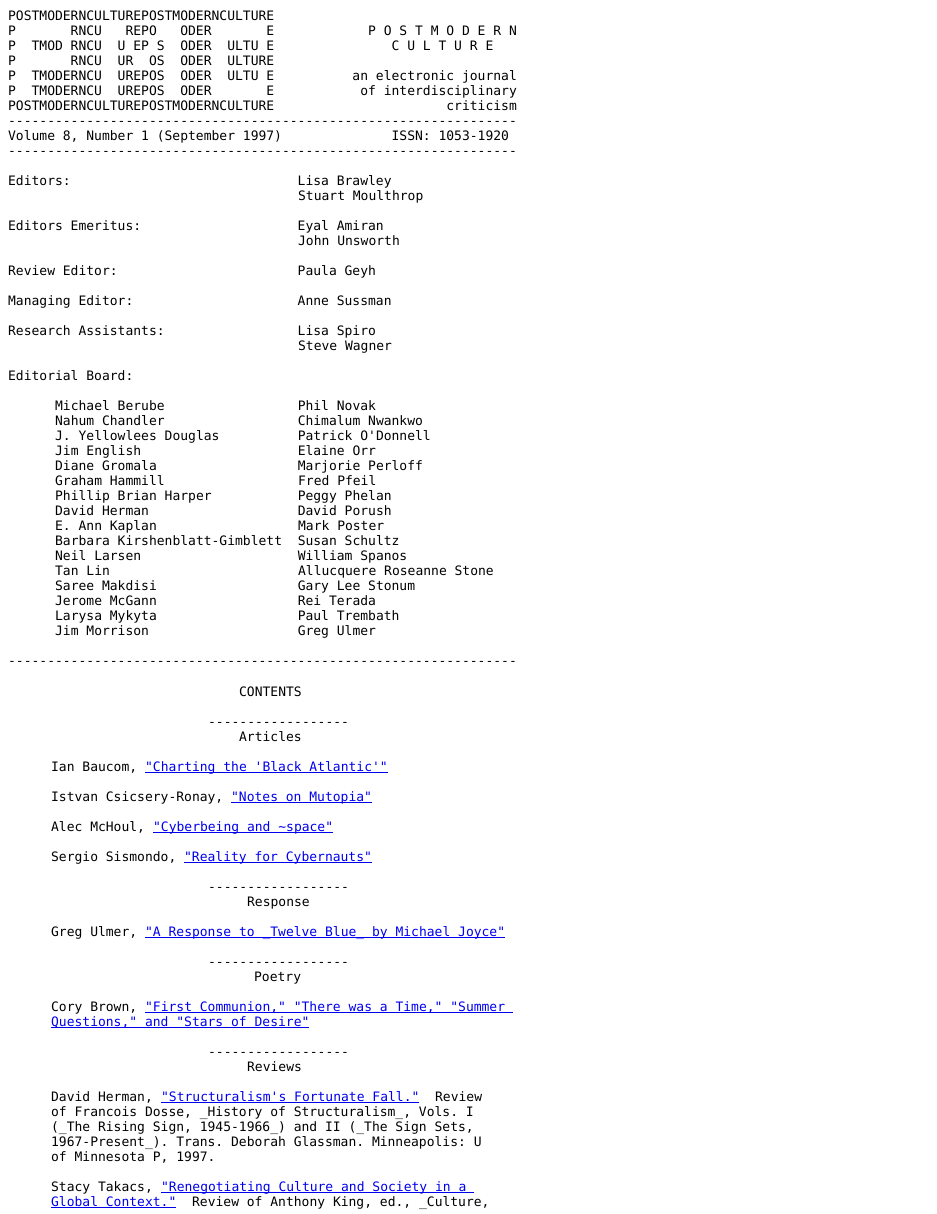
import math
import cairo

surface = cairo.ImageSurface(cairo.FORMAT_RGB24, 937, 1214)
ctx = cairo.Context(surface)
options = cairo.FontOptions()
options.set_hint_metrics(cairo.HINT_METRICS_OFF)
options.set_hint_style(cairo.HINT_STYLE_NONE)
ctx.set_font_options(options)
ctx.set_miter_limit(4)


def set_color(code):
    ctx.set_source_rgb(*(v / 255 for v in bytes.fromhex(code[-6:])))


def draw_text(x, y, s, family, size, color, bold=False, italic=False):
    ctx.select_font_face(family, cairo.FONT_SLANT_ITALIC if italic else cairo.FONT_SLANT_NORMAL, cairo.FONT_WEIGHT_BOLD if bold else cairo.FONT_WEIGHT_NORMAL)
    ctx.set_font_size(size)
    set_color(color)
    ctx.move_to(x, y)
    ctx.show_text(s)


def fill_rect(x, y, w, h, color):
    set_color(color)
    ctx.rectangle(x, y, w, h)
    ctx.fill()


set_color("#ffffff")
ctx.paint()
draw_text(8, 20, "POSTMODERNCULTUREPOSTMODERNCULTURE", "DejaVu Sans Mono", 13, "#000000")
draw_text(8, 35, "P       RNCU   REPO   ODER       E            P O S T M O D E R N", "DejaVu Sans Mono", 13, "#000000")
draw_text(8, 50, "P  TMOD RNCU  U EP S  ODER  ULTU E               C U L T U R E", "DejaVu Sans Mono", 13, "#000000")
draw_text(8, 65, "P       RNCU  UR  OS  ODER  ULTURE", "DejaVu Sans Mono", 13, "#000000")
draw_text(8, 80, "P  TMODERNCU  UREPOS  ODER  ULTU E          an electronic journal", "DejaVu Sans Mono", 13, "#000000")
draw_text(8, 95, "P  TMODERNCU  UREPOS  ODER       E           of interdisciplinary", "DejaVu Sans Mono", 13, "#000000")
draw_text(8, 110, "POSTMODERNCULTUREPOSTMODERNCULTURE                      criticism", "DejaVu Sans Mono", 13, "#000000")
draw_text(8, 125, "-----------------------------------------------------------------", "DejaVu Sans Mono", 13, "#000000")
draw_text(8, 140, "Volume 8, Number 1 (September 1997)              ISSN: 1053-1920", "DejaVu Sans Mono", 13, "#000000")
draw_text(8, 155, "-----------------------------------------------------------------", "DejaVu Sans Mono", 13, "#000000")
draw_text(8, 185, "Editors:                             Lisa Brawley", "DejaVu Sans Mono", 13, "#000000")
draw_text(298, 200, "Stuart Moulthrop", "DejaVu Sans Mono", 13, "#000000")
draw_text(8, 230, "Editors Emeritus:                    Eyal Amiran", "DejaVu Sans Mono", 13, "#000000")
draw_text(298, 245, "John Unsworth", "DejaVu Sans Mono", 13, "#000000")
draw_text(8, 275, "Review Editor:                       Paula Geyh", "DejaVu Sans Mono", 13, "#000000")
draw_text(8, 305, "Managing Editor:                     Anne Sussman", "DejaVu Sans Mono", 13, "#000000")
draw_text(8, 335, "Research Assistants:                 Lisa Spiro", "DejaVu Sans Mono", 13, "#000000")
draw_text(298, 350, "Steve Wagner", "DejaVu Sans Mono", 13, "#000000")
draw_text(8, 380, "Editorial Board:", "DejaVu Sans Mono", 13, "#000000")
draw_text(55, 410, "Michael Berube                 Phil Novak", "DejaVu Sans Mono", 13, "#000000")
draw_text(55, 425, "Nahum Chandler                 Chimalum Nwankwo", "DejaVu Sans Mono", 13, "#000000")
draw_text(55, 440, "J. Yellowlees Douglas          Patrick O'Donnell", "DejaVu Sans Mono", 13, "#000000")
draw_text(55, 455, "Jim English                    Elaine Orr", "DejaVu Sans Mono", 13, "#000000")
draw_text(55, 470, "Diane Gromala                  Marjorie Perloff", "DejaVu Sans Mono", 13, "#000000")
draw_text(55, 485, "Graham Hammill", "DejaVu Sans Mono", 13, "#000000")
draw_text(298, 485, "Fred Pfeil", "DejaVu Sans Mono", 13, "#000000")
draw_text(55, 500, "Phillip Brian Harper           Peggy Phelan", "DejaVu Sans Mono", 13, "#000000")
draw_text(55, 515, "David Herman                   David Porush", "DejaVu Sans Mono", 13, "#000000")
draw_text(55, 530, "E. Ann Kaplan", "DejaVu Sans Mono", 13, "#000000")
draw_text(298, 530, "Mark Poster", "DejaVu Sans Mono", 13, "#000000")
draw_text(55, 545, "Barbara Kirshenblatt-Gimblett  Susan Schultz", "DejaVu Sans Mono", 13, "#000000")
draw_text(55, 560, "Neil Larsen                    William Spanos", "DejaVu Sans Mono", 13, "#000000")
draw_text(55, 575, "Tan Lin", "DejaVu Sans Mono", 13, "#000000")
draw_text(298, 575, "Allucquere Roseanne Stone", "DejaVu Sans Mono", 13, "#000000")
draw_text(55, 590, "Saree Makdisi                  Gary Lee Stonum", "DejaVu Sans Mono", 13, "#000000")
draw_text(55, 605, "Jerome McGann                  Rei Terada", "DejaVu Sans Mono", 13, "#000000")
draw_text(55, 620, "Larysa Mykyta                  Paul Trembath", "DejaVu Sans Mono", 13, "#000000")
draw_text(55, 635, "Jim Morrison                   Greg Ulmer", "DejaVu Sans Mono", 13, "#000000")
draw_text(8, 665, "-----------------------------------------------------------------", "DejaVu Sans Mono", 13, "#000000")
draw_text(239, 696, "CONTENTS", "DejaVu Sans Mono", 13, "#000000")
draw_text(208, 726, "------------------", "DejaVu Sans Mono", 13, "#000000")
draw_text(239, 741, "Articles", "DejaVu Sans Mono", 13, "#000000")
draw_text(51, 771, "Ian Baucom,", "DejaVu Sans Mono", 13, "#000000")
fill_rect(145, 772, 243, 1, "#0000ee")
draw_text(145, 771, "\"Charting the 'Black Atlantic'\"", "DejaVu Sans Mono", 13, "#0000ee")
draw_text(51, 801, "Istvan Csicsery-Ronay,", "DejaVu Sans Mono", 13, "#000000")
fill_rect(231, 802, 141, 1, "#0000ee")
draw_text(231, 801, "\"Notes on Mutopia\"", "DejaVu Sans Mono", 13, "#0000ee")
draw_text(51, 831, "Alec McHoul,", "DejaVu Sans Mono", 13, "#000000")
fill_rect(153, 832, 180, 1, "#0000ee")
draw_text(153, 831, "\"Cyberbeing and ~space\"", "DejaVu Sans Mono", 13, "#0000ee")
draw_text(51, 861, "Sergio Sismondo,", "DejaVu Sans Mono", 13, "#000000")
fill_rect(184, 862, 188, 1, "#0000ee")
draw_text(184, 861, "\"Reality for Cybernauts\"", "DejaVu Sans Mono", 13, "#0000ee")
draw_text(208, 891, "------------------", "DejaVu Sans Mono", 13, "#000000")
draw_text(247, 906, "Response", "DejaVu Sans Mono", 13, "#000000")
draw_text(51, 936, "Greg Ulmer,", "DejaVu Sans Mono", 13, "#000000")
fill_rect(145, 937, 360, 1, "#0000ee")
draw_text(145, 936, "\"A Response to _Twelve Blue_ by Michael Joyce\"", "DejaVu Sans Mono", 13, "#0000ee")
draw_text(208, 966, "------------------", "DejaVu Sans Mono", 13, "#000000")
draw_text(254, 981, "Poetry", "DejaVu Sans Mono", 13, "#000000")
draw_text(51, 1011, "Cory Brown,", "DejaVu Sans Mono", 13, "#000000")
fill_rect(145, 1012, 368, 1, "#0000ee")
draw_text(145, 1011, "\"First Communion,\" \"There was a Time,\" \"Summer", "DejaVu Sans Mono", 13, "#0000ee")
fill_rect(51, 1027, 258, 1, "#0000ee")
draw_text(51, 1026, "Questions,\" and \"Stars of Desire\"", "DejaVu Sans Mono", 13, "#0000ee")
draw_text(208, 1056, "------------------", "DejaVu Sans Mono", 13, "#000000")
draw_text(247, 1071, "Reviews", "DejaVu Sans Mono", 13, "#000000")
draw_text(51, 1101, "David Herman,", "DejaVu Sans Mono", 13, "#000000")
draw_text(161, 1101, "\"Structuralism's Fortunate Fall.\"", "DejaVu Sans Mono", 13, "#0000ee")
fill_rect(161, 1102, 258, 1, "#0000ee")
draw_text(435, 1101, "Review", "DejaVu Sans Mono", 13, "#000000")
draw_text(51, 1116, "of Francois Dosse, _History of Structuralism_, Vols. I", "DejaVu Sans Mono", 13, "#000000")
draw_text(51, 1131, "(_The Rising Sign, 1945-1966_) and II (_The Sign Sets,", "DejaVu Sans Mono", 13, "#000000")
draw_text(51, 1146, "1967-Present_). Trans. Deborah Glassman. Minneapolis: U", "DejaVu Sans Mono", 13, "#000000")
draw_text(51, 1161, "of Minnesota P, 1997.", "DejaVu Sans Mono", 13, "#000000")
draw_text(51, 1191, "Stacy Takacs,", "DejaVu Sans Mono", 13, "#000000")
fill_rect(161, 1192, 313, 1, "#0000ee")
draw_text(161, 1191, "\"Renegotiating Culture and Society in a", "DejaVu Sans Mono", 13, "#0000ee")
draw_text(51, 1206, "Global Context.\"", "DejaVu Sans Mono", 13, "#0000ee")
fill_rect(51, 1207, 125, 1, "#0000ee")
draw_text(192, 1206, "Review of Anthony King, ed., _Culture,", "DejaVu Sans Mono", 13, "#000000")
surface.write_to_png("output.png")
